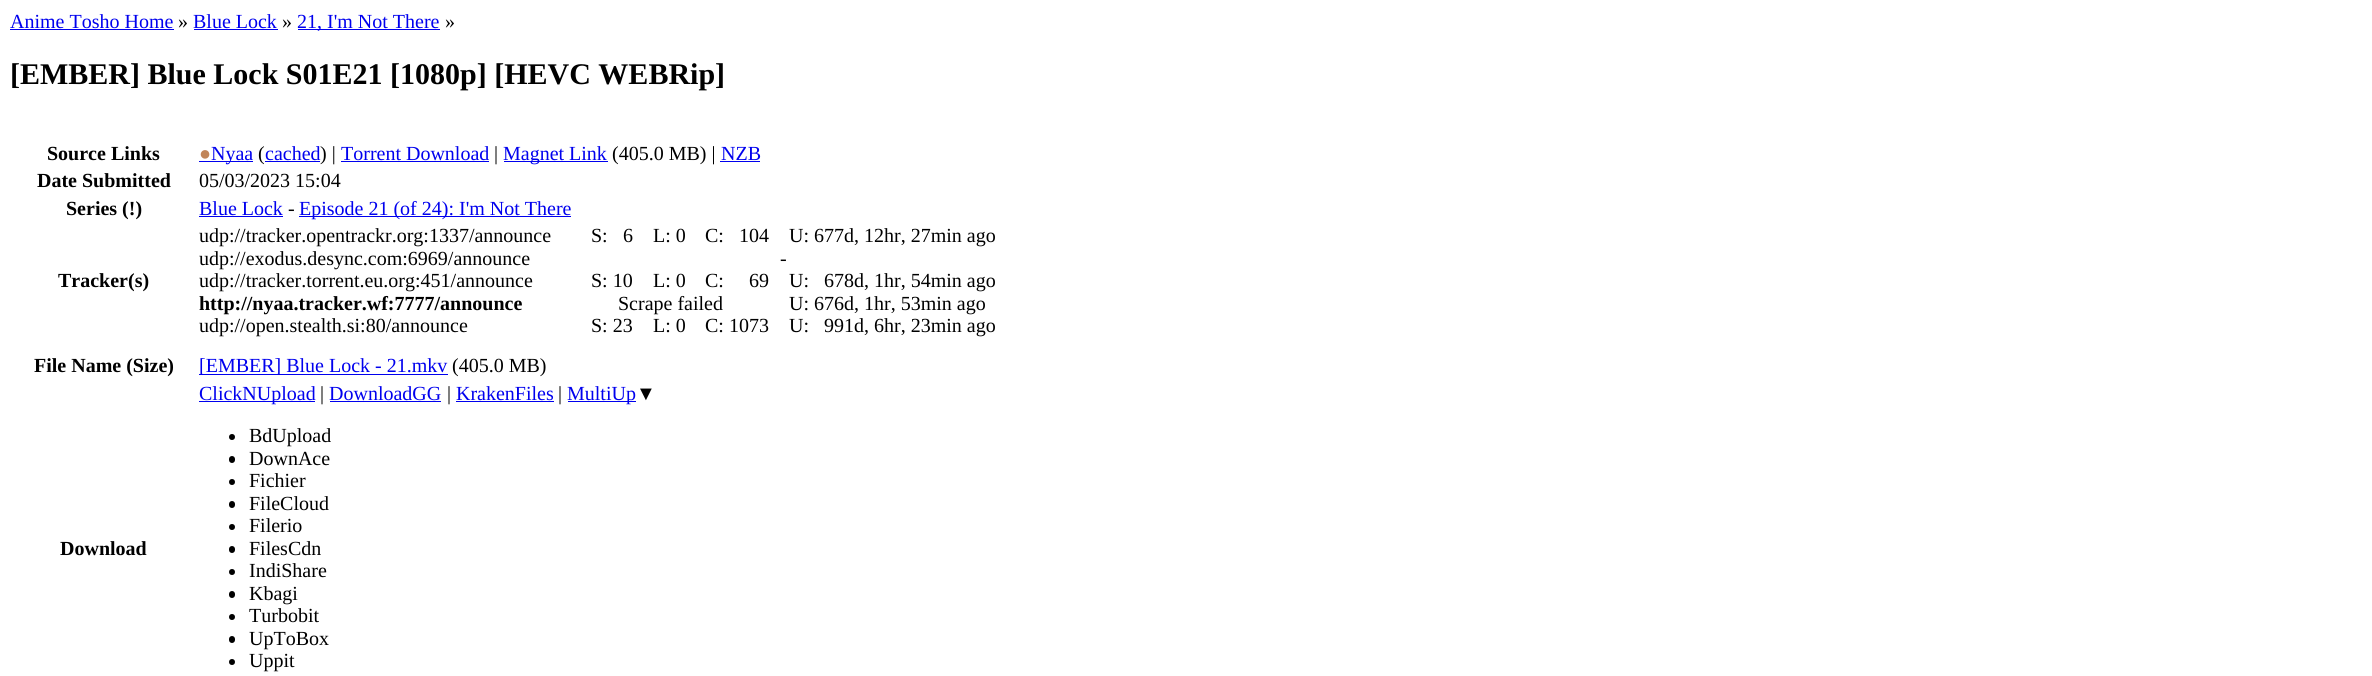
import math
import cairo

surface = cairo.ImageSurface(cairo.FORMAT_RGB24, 2372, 676)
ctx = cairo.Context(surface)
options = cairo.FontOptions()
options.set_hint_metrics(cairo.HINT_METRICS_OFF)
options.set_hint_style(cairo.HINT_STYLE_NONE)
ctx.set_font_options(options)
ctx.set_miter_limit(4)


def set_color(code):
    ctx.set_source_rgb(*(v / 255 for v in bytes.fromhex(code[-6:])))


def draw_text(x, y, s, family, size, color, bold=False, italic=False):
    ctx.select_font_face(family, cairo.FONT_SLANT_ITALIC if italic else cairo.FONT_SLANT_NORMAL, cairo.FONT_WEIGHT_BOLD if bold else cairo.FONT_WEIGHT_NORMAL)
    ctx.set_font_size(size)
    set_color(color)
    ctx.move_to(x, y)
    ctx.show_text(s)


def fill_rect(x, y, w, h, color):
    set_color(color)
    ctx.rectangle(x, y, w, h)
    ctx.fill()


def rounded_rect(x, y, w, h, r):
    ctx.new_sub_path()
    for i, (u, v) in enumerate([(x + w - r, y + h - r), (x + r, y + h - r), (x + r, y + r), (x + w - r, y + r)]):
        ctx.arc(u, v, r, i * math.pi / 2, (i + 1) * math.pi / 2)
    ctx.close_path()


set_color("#ffffff")
ctx.paint()
draw_text(10, 28, "Anime Tosho Home", "Liberation Serif", 20, "#0000ee")
fill_rect(10, 29, 164, 1, "#0000ee")
draw_text(178, 28, "»", "Liberation Serif", 20, "#000000")
draw_text(193, 28, "Blue Lock", "Liberation Serif", 20, "#0000ee")
fill_rect(194, 29, 84, 1, "#0000ee")
draw_text(282, 28, "»", "Liberation Serif", 20, "#000000")
fill_rect(298, 29, 142, 1, "#0000ee")
draw_text(297, 28, "21, I'm Not There", "Liberation Serif", 20, "#0000ee")
draw_text(445, 28, "»", "Liberation Serif", 20, "#000000")
draw_text(10, 84, "[EMBER] Blue Lock S01E21 [1080p] [HEVC WEBRip]", "Liberation Serif", 30, "#000000", bold=True)
draw_text(47, 160, "Source Links", "Liberation Serif", 20, "#000000", bold=True)
draw_text(199, 160, "●", "Liberation Serif", 20, "#c18558")
fill_rect(199, 161, 54, 1, "#0000ee")
draw_text(211, 160, "Nyaa", "Liberation Serif", 20, "#0000ee")
draw_text(258, 160, "(", "Liberation Serif", 20, "#000000")
draw_text(265, 160, "cached", "Liberation Serif", 20, "#0000ee")
fill_rect(265, 161, 55, 1, "#0000ee")
draw_text(320, 160, ") |", "Liberation Serif", 20, "#000000")
draw_text(341, 160, "Torrent Download", "Liberation Serif", 20, "#0000ee")
fill_rect(341, 161, 148, 1, "#0000ee")
draw_text(494, 160, "|", "Liberation Serif", 20, "#000000")
fill_rect(504, 161, 104, 1, "#0000ee")
draw_text(503, 160, "Magnet Link", "Liberation Serif", 20, "#0000ee")
draw_text(612, 160, "(405.0 MB) |", "Liberation Serif", 20, "#000000")
draw_text(721, 160, "NZB", "Liberation Serif", 20, "#0000ee")
fill_rect(720, 161, 40, 1, "#0000ee")
draw_text(37, 187, "Date Submitted", "Liberation Serif", 20, "#000000", bold=True)
draw_text(199, 187, "05/03/2023 15:04", "Liberation Serif", 20, "#000000")
draw_text(66, 215, "Series (!)", "Liberation Serif", 20, "#000000", bold=True)
draw_text(199, 215, "Blue Lock", "Liberation Serif", 20, "#0000ee")
fill_rect(199, 216, 84, 1, "#0000ee")
draw_text(288, 215, "-", "Liberation Serif", 20, "#000000")
fill_rect(299, 216, 272, 1, "#0000ee")
draw_text(299, 215, "Episode 21 (of 24): I'm Not There", "Liberation Serif", 20, "#0000ee")
draw_text(58, 287, "Tracker(s)", "Liberation Serif", 20, "#000000", bold=True)
draw_text(199, 242, "udp://tracker.opentrackr.org:1337/announce", "Liberation Serif", 20, "#000000")
draw_text(591, 242, "S:", "Liberation Serif", 20, "#000000")
draw_text(623, 242, "6", "Liberation Serif", 20, "#000000")
draw_text(653, 242, "L: 0", "Liberation Serif", 20, "#000000")
draw_text(705, 242, "C:", "Liberation Serif", 20, "#000000")
draw_text(739, 242, "104", "Liberation Serif", 20, "#000000")
draw_text(789, 242, "U: 677d, 12hr, 27min ago", "Liberation Serif", 20, "#000000")
draw_text(199, 265, "udp://exodus.desync.com:6969/announce", "Liberation Serif", 20, "#000000")
draw_text(780, 265, "-", "Liberation Serif", 20, "#000000")
draw_text(199, 287, "udp://tracker.torrent.eu.org:451/announce", "Liberation Serif", 20, "#000000")
draw_text(591, 287, "S: 10", "Liberation Serif", 20, "#000000")
draw_text(653, 287, "L: 0", "Liberation Serif", 20, "#000000")
draw_text(705, 287, "C:", "Liberation Serif", 20, "#000000")
draw_text(749, 287, "69", "Liberation Serif", 20, "#000000")
draw_text(789, 287, "U:", "Liberation Serif", 20, "#000000")
draw_text(824, 287, "678d, 1hr, 54min ago", "Liberation Serif", 20, "#000000")
draw_text(199, 310, "http://nyaa.tracker.wf:7777/announce", "Liberation Serif", 20, "#000000", bold=True)
draw_text(618, 310, "Scrape failed", "Liberation Serif", 20, "#000000")
draw_text(789, 310, "U: 676d, 1hr, 53min ago", "Liberation Serif", 20, "#000000")
draw_text(199, 332, "udp://open.stealth.si:80/announce", "Liberation Serif", 20, "#000000")
draw_text(591, 332, "S: 23", "Liberation Serif", 20, "#000000")
draw_text(653, 332, "L: 0", "Liberation Serif", 20, "#000000")
draw_text(705, 332, "C: 1073", "Liberation Serif", 20, "#000000")
draw_text(789, 332, "U:", "Liberation Serif", 20, "#000000")
draw_text(824, 332, "991d, 6hr, 23min ago", "Liberation Serif", 20, "#000000")
draw_text(34, 372, "File Name (Size)", "Liberation Serif", 20, "#000000", bold=True)
fill_rect(199, 374, 249, 1, "#0000ee")
draw_text(199, 372, "[EMBER] Blue Lock - 21.mkv", "Liberation Serif", 20, "#0000ee")
draw_text(452, 372, "(405.0 MB)", "Liberation Serif", 20, "#000000")
draw_text(60, 555, "Download", "Liberation Serif", 20, "#000000", bold=True)
fill_rect(199, 401, 116, 1, "#0000ee")
draw_text(199, 400, "ClickNUpload", "Liberation Serif", 20, "#0000ee")
fill_rect(568, 401, 68, 1, "#0000ee")
draw_text(567, 400, "MultiUp", "Liberation Serif", 20, "#0000ee")
draw_text(636, 400, "▼", "Liberation Serif", 20, "#000000")
ctx.new_path()
ctx.arc(232, 437, 3, 0, 2 * math.pi)
ctx.fill()
draw_text(249, 442, "BdUpload", "Liberation Serif", 20, "#000000")
rounded_rect(229, 456, 6, 7, 3)
ctx.fill()
draw_text(249, 465, "DownAce", "Liberation Serif", 20, "#000000")
ctx.new_path()
ctx.arc(232, 482, 3, 0, 2 * math.pi)
ctx.fill()
draw_text(249, 487, "Fichier", "Liberation Serif", 20, "#000000")
rounded_rect(229, 501, 6, 7, 3)
ctx.fill()
draw_text(249, 510, "FileCloud", "Liberation Serif", 20, "#000000")
ctx.new_path()
ctx.arc(232, 527, 3, 0, 2 * math.pi)
ctx.fill()
draw_text(249, 532, "Filerio", "Liberation Serif", 20, "#000000")
rounded_rect(229, 546, 6, 7, 3)
ctx.fill()
draw_text(249, 555, "FilesCdn", "Liberation Serif", 20, "#000000")
ctx.new_path()
ctx.arc(232, 572, 3, 0, 2 * math.pi)
ctx.fill()
draw_text(249, 577, "IndiShare", "Liberation Serif", 20, "#000000")
rounded_rect(229, 591, 6, 7, 3)
ctx.fill()
draw_text(249, 600, "Kbagi", "Liberation Serif", 20, "#000000")
ctx.new_path()
ctx.arc(232, 617, 3, 0, 2 * math.pi)
ctx.fill()
draw_text(249, 622, "Turbobit", "Liberation Serif", 20, "#000000")
rounded_rect(229, 636, 6, 7, 3)
ctx.fill()
draw_text(249, 645, "UpToBox", "Liberation Serif", 20, "#000000")
ctx.new_path()
ctx.arc(232, 662, 3, 0, 2 * math.pi)
ctx.fill()
draw_text(249, 667, "Uppit", "Liberation Serif", 20, "#000000")
draw_text(320, 400, "|", "Liberation Serif", 20, "#000000")
draw_text(329, 400, "DownloadGG", "Liberation Serif", 20, "#0000ee")
fill_rect(330, 401, 111, 1, "#0000ee")
draw_text(447, 400, "|", "Liberation Serif", 20, "#000000")
draw_text(456, 400, "KrakenFiles", "Liberation Serif", 20, "#0000ee")
fill_rect(456, 401, 98, 1, "#0000ee")
draw_text(558, 400, "|", "Liberation Serif", 20, "#000000")
surface.write_to_png("output.png")
